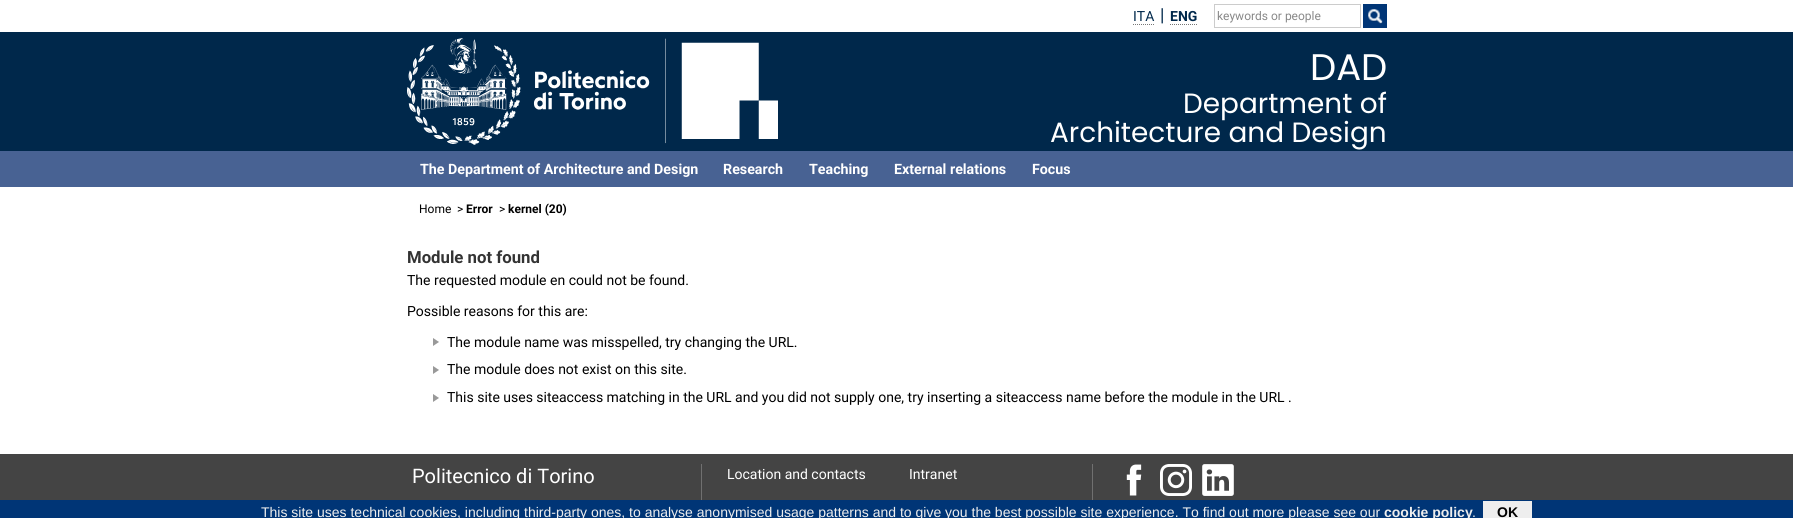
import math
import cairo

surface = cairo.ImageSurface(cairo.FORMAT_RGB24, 1793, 518)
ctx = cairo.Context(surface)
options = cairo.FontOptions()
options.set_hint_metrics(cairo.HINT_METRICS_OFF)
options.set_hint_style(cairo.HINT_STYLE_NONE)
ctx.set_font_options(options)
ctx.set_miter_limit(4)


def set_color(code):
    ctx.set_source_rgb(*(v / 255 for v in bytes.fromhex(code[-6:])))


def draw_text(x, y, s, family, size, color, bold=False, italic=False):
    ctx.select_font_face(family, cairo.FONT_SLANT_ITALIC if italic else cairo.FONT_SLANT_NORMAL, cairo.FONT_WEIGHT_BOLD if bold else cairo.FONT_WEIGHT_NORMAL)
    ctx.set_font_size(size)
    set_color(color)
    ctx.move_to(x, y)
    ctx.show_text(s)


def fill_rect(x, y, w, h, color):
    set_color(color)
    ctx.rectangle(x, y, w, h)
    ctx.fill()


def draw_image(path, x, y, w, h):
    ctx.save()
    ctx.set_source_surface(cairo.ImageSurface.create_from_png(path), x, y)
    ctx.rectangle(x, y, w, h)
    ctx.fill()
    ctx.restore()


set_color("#ffffff")
ctx.paint()
draw_text(1133, 21, "ITA", "Roboto", 14, "#00284b")
ctx.new_path()
ctx.move_to(1133, 24.5)
ctx.line_to(1154, 24.5)
set_color("#777777")
ctx.set_line_width(1)
ctx.set_dash([1, 1])
ctx.stroke()
draw_text(1160, 21, "|", "Roboto", 18, "#00284b")
draw_text(1170, 21, "ENG", "Roboto", 14, "#00284b", bold=True)
ctx.new_path()
ctx.move_to(1170, 24.5)
ctx.line_to(1198, 24.5)
set_color("#777777")
ctx.stroke()
ctx.rectangle(1214.5, 4.5, 146, 23)
set_color("#cccccc")
ctx.set_dash([])
ctx.stroke()
draw_text(1217, 20, "keywords or people", "Roboto", 12, "#888888")
fill_rect(1363, 4, 24, 24, "#003576")
draw_image("assets/img1.png", 1368, 9, 15, 15)
fill_rect(0, 32, 1793, 119, "#00284b")
draw_image("assets/img2.png", 407, 38, 371, 107)
draw_text(1310, 80, "DAD", "Poppins", 37, "#ffffff")
draw_text(1183, 113, "Department of", "Poppins", 27.9, "#ffffff")
draw_text(1050, 142, "Architecture and Design", "Poppins", 27.9, "#ffffff")
fill_rect(0, 151, 1793, 36, "#486293")
draw_text(420, 174, "The Department of Architecture and Design", "Roboto", 14.25, "#ffffff", bold=True)
draw_text(723, 174, "Research", "Roboto", 14.25, "#ffffff", bold=True)
draw_text(809, 174, "Teaching", "Roboto", 14.25, "#ffffff", bold=True)
draw_text(894, 174, "External relations", "Roboto", 14.25, "#ffffff", bold=True)
draw_text(1032, 174, "Focus", "Roboto", 14.25, "#ffffff", bold=True)
draw_text(419, 213, "Home", "Roboto", 12, "#000000")
draw_text(457, 213, ">", "Roboto", 12, "#000000")
draw_text(466, 213, "Error", "Roboto", 12, "#000000", bold=True)
draw_text(499, 213, ">", "Roboto", 12, "#000000")
draw_text(508, 213, "kernel (20)", "Roboto", 12, "#000000", bold=True)
draw_text(407, 263, "Module not found", "Roboto", 16.75, "#333333", bold=True)
draw_text(407, 285, "The requested module en could not be found.", "Roboto", 14, "#000000")
draw_text(407, 316, "Possible reasons for this are:", "Roboto", 14, "#000000")
set_color("#999999")
ctx.new_path()
ctx.move_to(433, 346)
ctx.line_to(433, 338)
ctx.line_to(439, 342)
ctx.close_path()
ctx.move_to(433, 374)
ctx.line_to(433, 366)
ctx.line_to(439, 370)
ctx.close_path()
ctx.fill()
draw_text(447, 347, "The module name was misspelled, try changing the URL.", "Roboto", 14, "#000000")
draw_text(447, 374, "The module does not exist on this site.", "Roboto", 14, "#000000")
set_color("#999999")
ctx.new_path()
ctx.move_to(433, 402)
ctx.line_to(433, 394)
ctx.line_to(439, 398)
ctx.close_path()
ctx.fill()
draw_text(447, 402, "This site uses siteaccess matching in the URL and you did not supply one, try inserting a siteaccess name before the module in the URL .", "Roboto", 14, "#000000")
fill_rect(0, 454, 1793, 46, "#444444")
draw_text(412, 483, "Politecnico di Torino", "Roboto", 20, "#ffffff")
fill_rect(1092, 464, 1, 36, "#707070")
fill_rect(701, 464, 1, 36, "#707070")
draw_text(727, 479, "Location and contacts", "Roboto", 14, "#ffffff")
draw_text(909, 479, "Intranet", "Roboto", 14, "#ffffff")
draw_image("assets/img3.png", 1126, 464, 16, 32)
draw_image("assets/img4.png", 1160, 464, 32, 32)
draw_image("assets/img5.png", 1202, 464, 32, 32)
fill_rect(0, 500, 1793, 18, "#003576")
draw_text(261, 517, "This site uses technical cookies, including third-party ones, to analyse anonymised usage patterns and to give you the best possible site experience. To find out more please see our", "Liberation Sans", 14, "#eeeeee")
draw_text(1384, 517, "cookie policy", "Liberation Sans", 14, "#eeeeee", bold=True)
draw_text(1472, 517, ".", "Liberation Sans", 14, "#eeeeee")
fill_rect(1483, 501, 49, 17, "#eeeeee")
draw_text(1497, 517, "OK", "Liberation Sans", 14, "#000000", bold=True)
surface.write_to_png("output.png")
